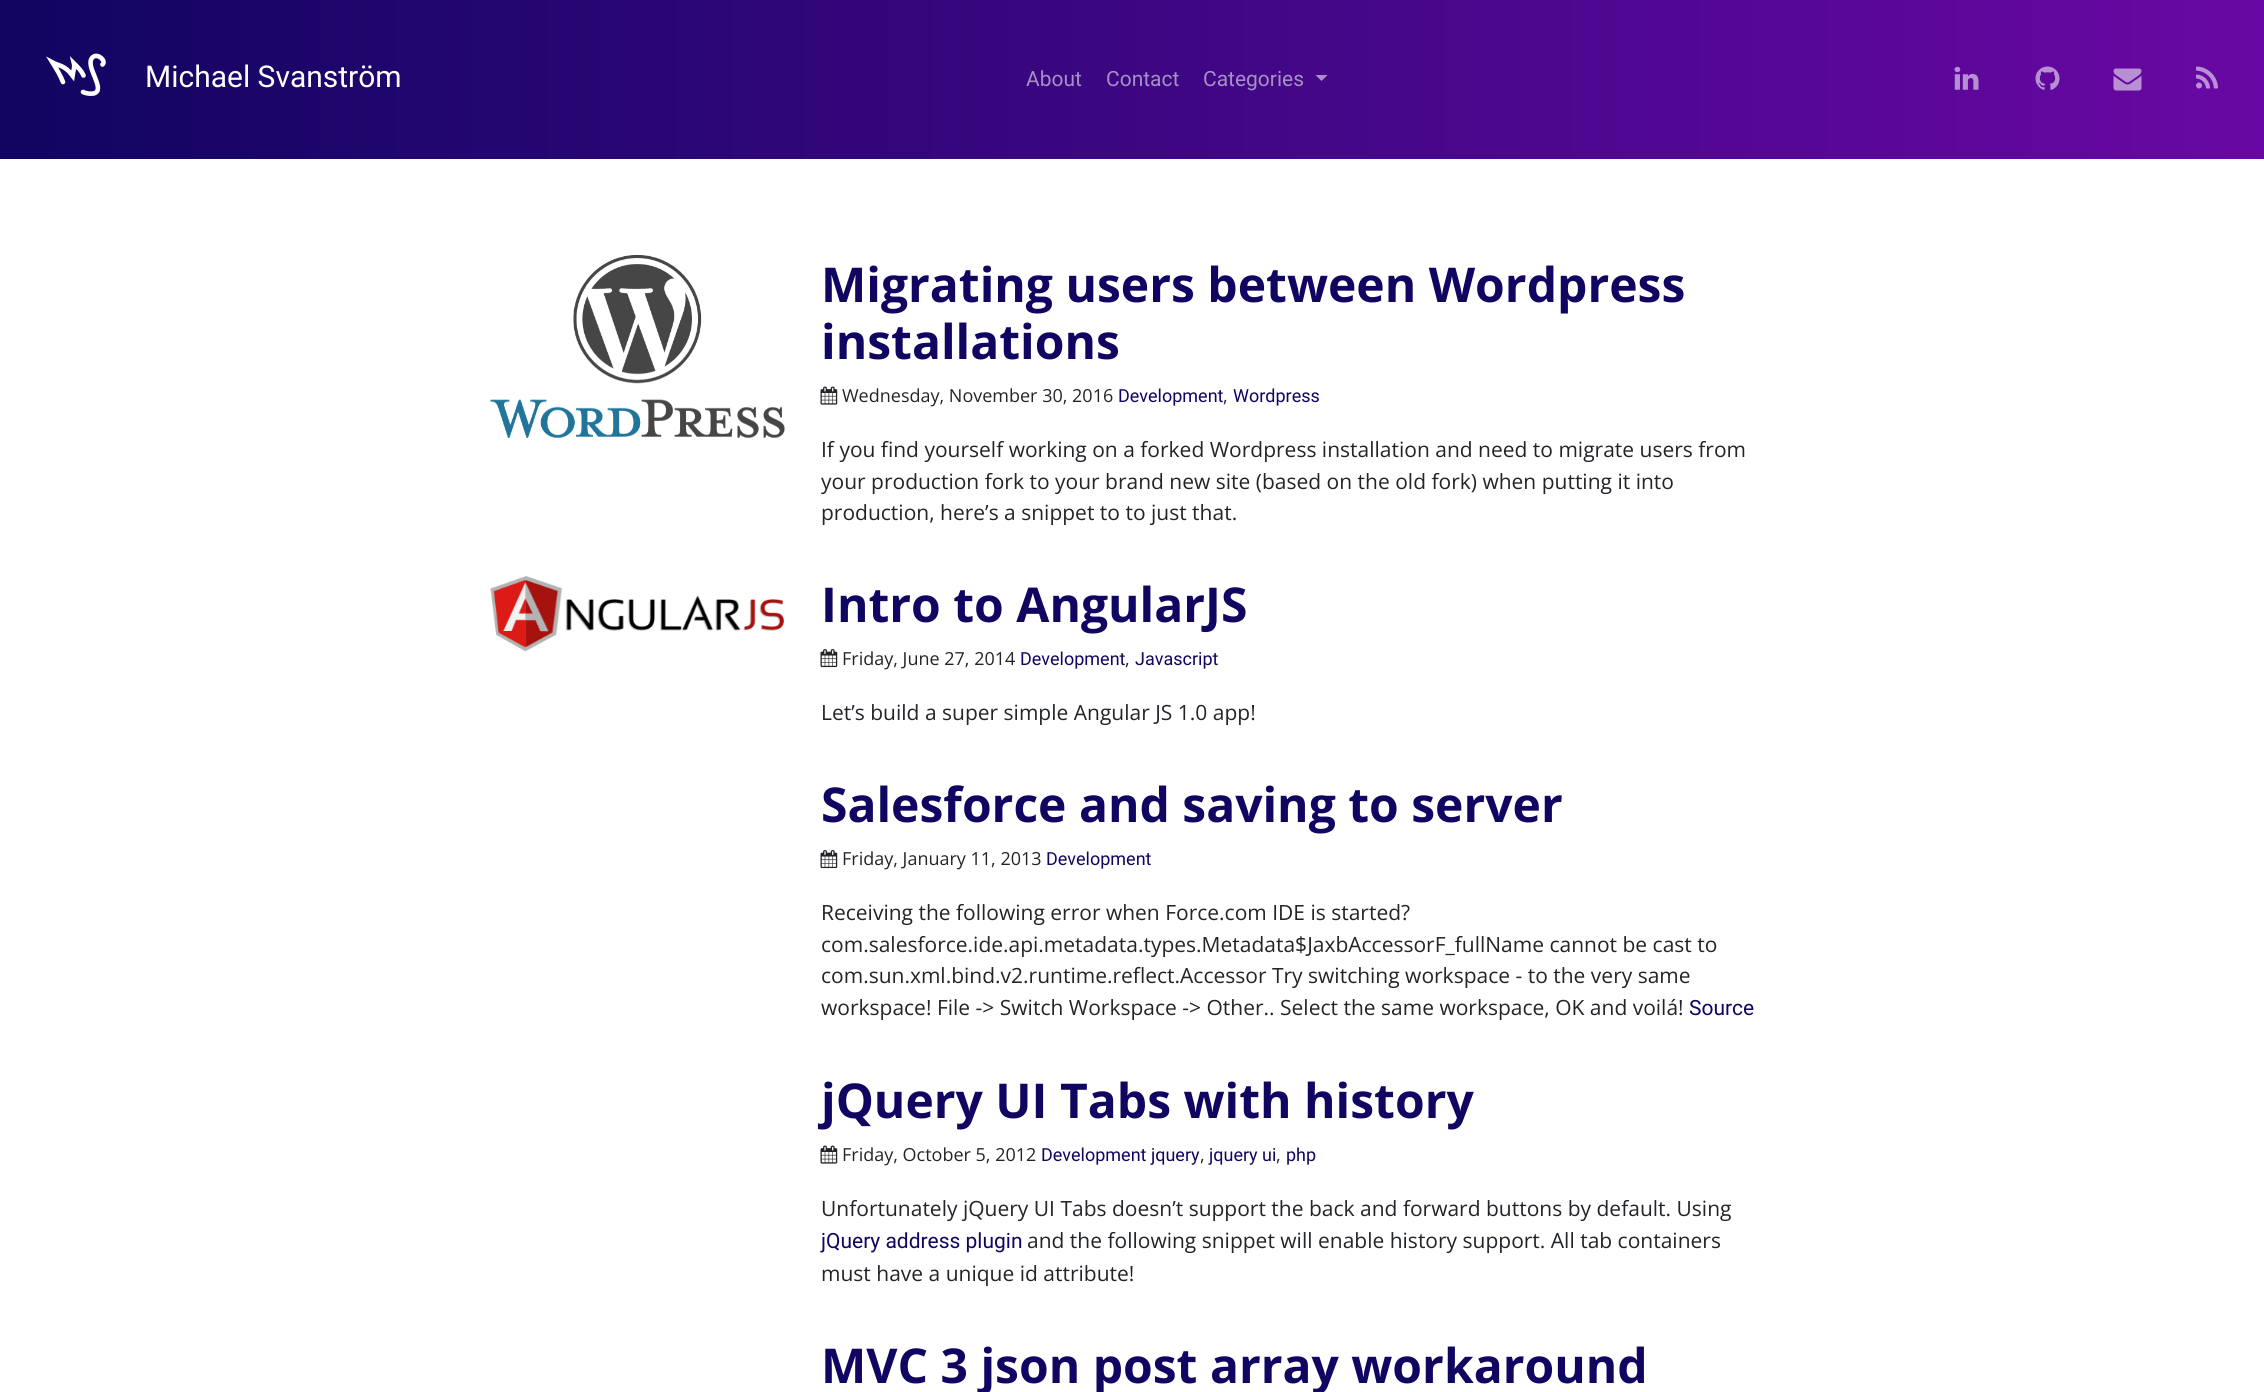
import math
import cairo

surface = cairo.ImageSurface(cairo.FORMAT_RGB24, 2264, 1392)
ctx = cairo.Context(surface)
options = cairo.FontOptions()
options.set_hint_metrics(cairo.HINT_METRICS_OFF)
options.set_hint_style(cairo.HINT_STYLE_NONE)
ctx.set_font_options(options)
ctx.set_miter_limit(4)


def set_color(code):
    ctx.set_source_rgb(*(v / 255 for v in bytes.fromhex(code[-6:])))


def draw_text(x, y, s, family, size, color, bold=False, italic=False):
    ctx.select_font_face(family, cairo.FONT_SLANT_ITALIC if italic else cairo.FONT_SLANT_NORMAL, cairo.FONT_WEIGHT_BOLD if bold else cairo.FONT_WEIGHT_NORMAL)
    ctx.set_font_size(size)
    set_color(color)
    ctx.move_to(x, y)
    ctx.show_text(s)


def draw_image(path, x, y, w, h):
    ctx.save()
    ctx.set_source_surface(cairo.ImageSurface.create_from_png(path), x, y)
    ctx.rectangle(x, y, w, h)
    ctx.fill()
    ctx.restore()


set_color("#ffffff")
ctx.paint()
gradient = cairo.LinearGradient(0, 239, 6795, 238)
gradient.add_color_stop_rgba(0, 0.063, 0.02, 0.38, 1)
gradient.add_color_stop_rgba(0.5, 0.584, 0.035, 0.773, 1)
gradient.add_color_stop_rgba(1, 0.522, 0.882, 0.745, 1)
ctx.set_source(gradient)
ctx.rectangle(0, 0, 2264, 159)
ctx.fill()
ctx.new_path()
ctx.move_to(63, 82)
ctx.curve_to(60.5, 75.5, 56.5, 69, 52.5, 62.5)
ctx.curve_to(59, 66, 64.5, 65, 72.5, 75.5)
ctx.curve_to(73, 71.5, 75, 67.5, 74, 63.5)
ctx.curve_to(78.5, 68, 81, 70, 83.5, 75.5)
ctx.move_to(83, 92)
ctx.curve_to(86, 93.5, 90, 94, 93.5, 93.5)
ctx.curve_to(107.5, 90, 83, 65, 93, 57)
ctx.curve_to(98, 53, 106.5, 61, 102.5, 64.5)
set_color("#ffffff")
ctx.set_line_width(4.6)
ctx.set_line_cap(cairo.LINE_CAP_ROUND)
ctx.stroke()
draw_text(145, 87, "Michael Svanström", "Roboto", 30, "#ffffff")
draw_text(1026, 86, "About", "Roboto", 21, "#a68fc6")
draw_text(1106, 86, "Contact", "Roboto", 21, "#a68fc6")
draw_text(1203, 86, "Categories", "Roboto", 21, "#a68fc6")
set_color("#ab8fc9")
ctx.new_path()
ctx.move_to(1315.5, 75)
ctx.line_to(1327.5, 75)
ctx.line_to(1321.5, 81)
ctx.close_path()
ctx.fill()
draw_image("assets/img1.png", 1954, 66, 25, 24)
draw_image("assets/img2.png", 2035, 66, 25, 24)
draw_image("assets/img3.png", 2113, 68, 29, 23)
draw_image("assets/img4.png", 2196, 66, 22, 23)
draw_image("assets/img5.png", 490, 255, 295, 183)
draw_text(821, 302, "Migrating users between Wordpress", "Open Sans", 48, "#100561", bold=True)
draw_text(821, 359, "installations", "Open Sans", 48, "#100561", bold=True)
draw_image("assets/img6.png", 820, 386, 18, 19)
draw_text(842, 402, "Wednesday, November 30, 2016", "Open Sans", 18, "#212529")
draw_text(1118, 402, "Development", "Roboto", 18, "#100561")
draw_text(1223, 402, ",", "Open Sans", 18, "#212529")
draw_text(1233, 402, "Wordpress", "Roboto", 18, "#100561")
draw_text(821, 457, "If you find yourself working on a forked Wordpress installation and need to migrate users from", "Open Sans", 21, "#212529")
draw_text(821, 489, "your production fork to your brand new site (based on the old fork) when putting it into", "Open Sans", 21, "#212529")
draw_text(821, 520, "production, here’s a snippet to to just that.", "Open Sans", 21, "#212529")
draw_image("assets/img7.png", 490, 576, 294, 76)
draw_text(821, 622, "Intro to AngularJS", "Open Sans", 48, "#100561", bold=True)
draw_image("assets/img8.png", 820, 649, 18, 19)
draw_text(842, 665, "Friday, June 27, 2014", "Open Sans", 18, "#212529")
draw_text(1020, 665, "Development", "Roboto", 18, "#100561")
draw_text(1125, 665, ",", "Open Sans", 18, "#212529")
draw_text(1135, 665, "Javascript", "Roboto", 18, "#100561")
draw_text(821, 720, "Let’s build a super simple Angular JS 1.0 app!", "Open Sans", 21, "#212529")
draw_text(821, 822, "Salesforce and saving to server", "Open Sans", 48, "#100561", bold=True)
draw_image("assets/img8.png", 820, 850, 18, 19)
draw_text(842, 865, "Friday, January 11, 2013", "Open Sans", 18, "#212529")
draw_text(1046, 865, "Development", "Roboto", 18, "#100561")
draw_text(821, 920, "Receiving the following error when Force.com IDE is started?", "Open Sans", 21, "#212529")
draw_text(821, 952, "com.salesforce.ide.api.metadata.types.Metadata$JaxbAccessorF_fullName cannot be cast to", "Open Sans", 21, "#212529")
draw_text(821, 983, "com.sun.xml.bind.v2.runtime.reflect.Accessor Try switching workspace - to the very same", "Open Sans", 21, "#212529")
draw_text(821, 1015, "workspace! File -> Switch Workspace -> Other.. Select the same workspace, OK and voilá!", "Open Sans", 21, "#212529")
draw_text(1689, 1015, "Source", "Roboto", 21, "#100561")
draw_text(821, 1118, "jQuery UI Tabs with history", "Open Sans", 48, "#100561", bold=True)
draw_image("assets/img6.png", 820, 1145, 18, 19)
draw_text(842, 1161, "Friday, October 5, 2012", "Open Sans", 18, "#212529")
draw_text(1041, 1161, "Development jquery", "Roboto", 18, "#100561")
draw_text(1200, 1161, ",", "Open Sans", 18, "#212529")
draw_text(1209, 1161, "jquery ui", "Roboto", 18, "#100561")
draw_text(1276, 1161, ",", "Open Sans", 18, "#212529")
draw_text(1286, 1161, "php", "Roboto", 18, "#100561")
draw_text(821, 1216, "Unfortunately jQuery UI Tabs doesn’t support the back and forward buttons by default. Using", "Open Sans", 21, "#212529")
draw_text(821, 1248, "jQuery address plugin", "Roboto", 21, "#100561")
draw_text(1027, 1248, "and the following snippet will enable history support. All tab containers", "Open Sans", 21, "#212529")
draw_text(821, 1281, "must have a unique id attribute!", "Open Sans", 21, "#212529")
draw_text(821, 1383, "MVC 3 json post array workaround", "Open Sans", 48, "#100561", bold=True)
surface.write_to_png("output.png")
